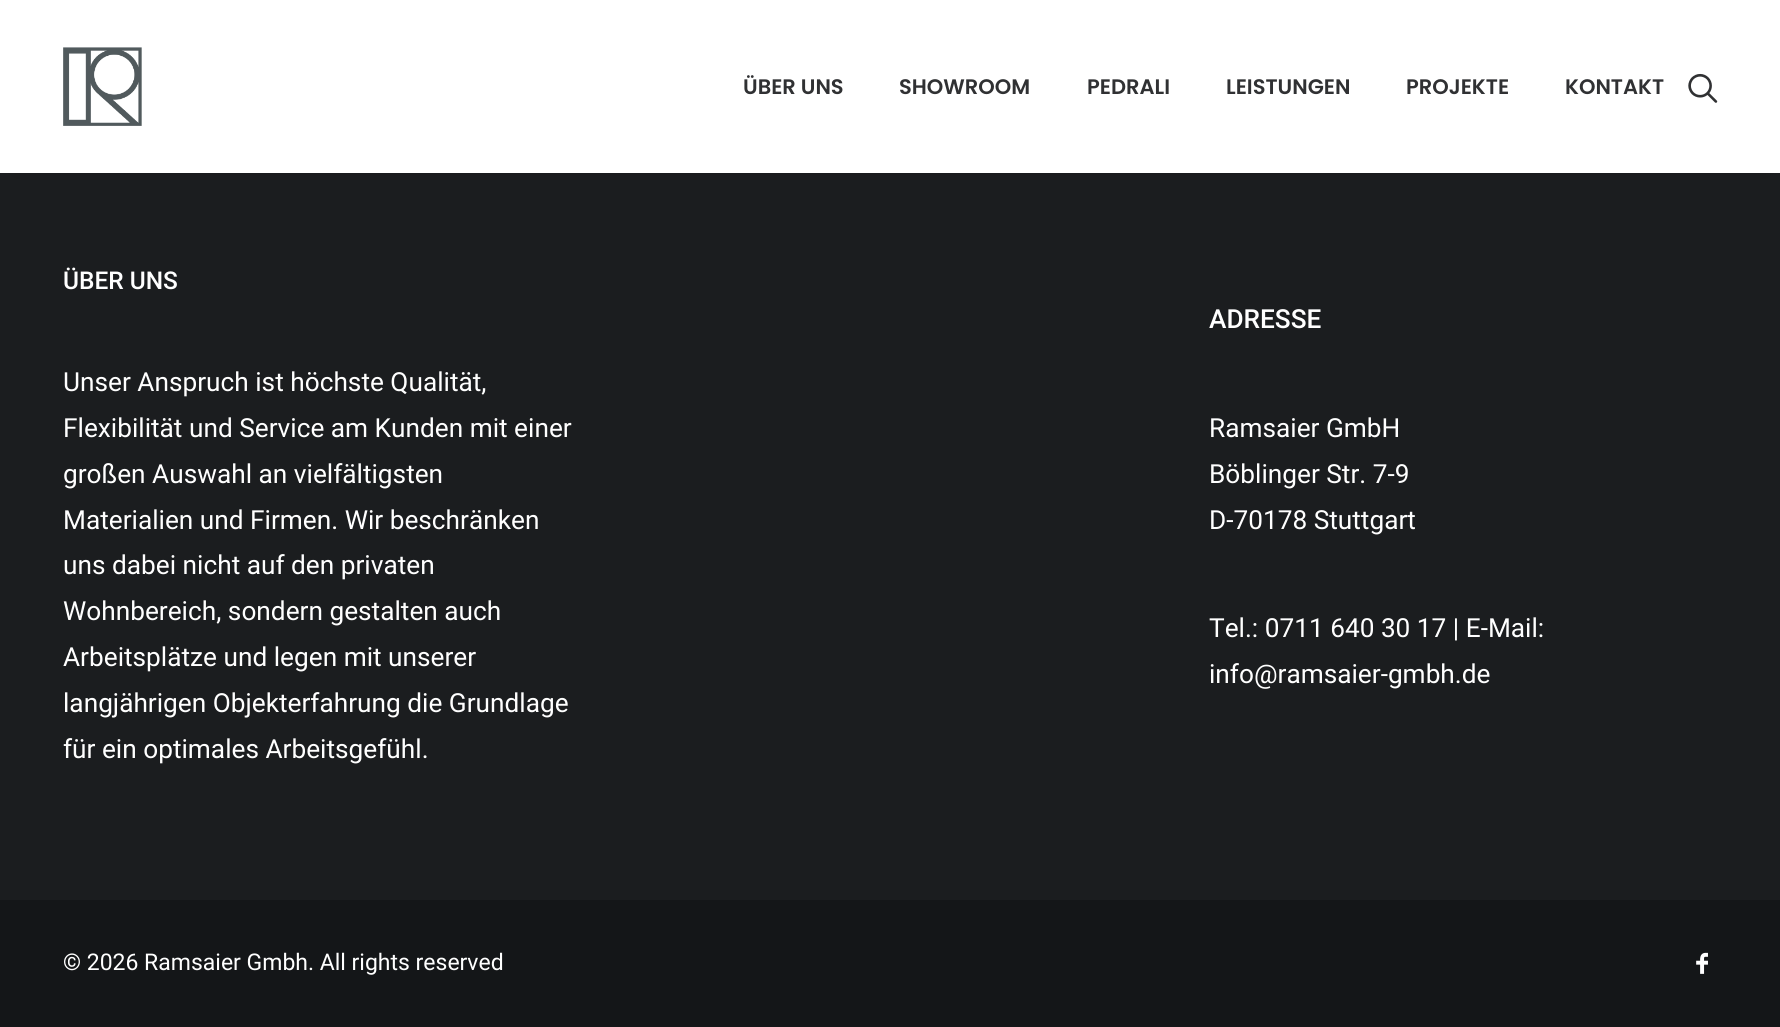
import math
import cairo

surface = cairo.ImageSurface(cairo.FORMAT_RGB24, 1780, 1027)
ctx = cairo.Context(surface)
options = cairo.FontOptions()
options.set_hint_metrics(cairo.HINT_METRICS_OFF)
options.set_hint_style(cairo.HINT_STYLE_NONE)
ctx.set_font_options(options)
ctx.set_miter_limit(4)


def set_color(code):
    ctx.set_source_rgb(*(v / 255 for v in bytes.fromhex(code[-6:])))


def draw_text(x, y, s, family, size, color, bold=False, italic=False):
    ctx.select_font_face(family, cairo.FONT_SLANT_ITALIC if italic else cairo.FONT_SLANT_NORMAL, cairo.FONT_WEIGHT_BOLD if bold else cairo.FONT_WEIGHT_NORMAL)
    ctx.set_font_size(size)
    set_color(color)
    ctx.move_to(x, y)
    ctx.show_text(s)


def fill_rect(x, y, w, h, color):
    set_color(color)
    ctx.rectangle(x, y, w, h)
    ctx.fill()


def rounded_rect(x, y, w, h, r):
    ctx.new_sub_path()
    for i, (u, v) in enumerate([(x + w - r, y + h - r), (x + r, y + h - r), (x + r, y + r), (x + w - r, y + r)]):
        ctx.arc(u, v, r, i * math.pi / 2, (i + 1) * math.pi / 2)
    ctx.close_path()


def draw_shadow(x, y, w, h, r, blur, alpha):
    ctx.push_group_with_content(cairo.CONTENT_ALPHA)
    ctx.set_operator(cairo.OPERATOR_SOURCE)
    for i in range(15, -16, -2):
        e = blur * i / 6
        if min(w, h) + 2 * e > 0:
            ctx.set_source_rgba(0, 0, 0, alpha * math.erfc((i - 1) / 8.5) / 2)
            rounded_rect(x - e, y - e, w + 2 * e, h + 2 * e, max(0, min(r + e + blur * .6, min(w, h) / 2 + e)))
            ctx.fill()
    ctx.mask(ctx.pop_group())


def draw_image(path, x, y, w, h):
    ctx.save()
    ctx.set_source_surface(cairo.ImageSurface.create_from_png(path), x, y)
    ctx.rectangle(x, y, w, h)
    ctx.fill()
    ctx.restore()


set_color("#141618")
ctx.paint()
fill_rect(0, 173, 1780, 727, "#1b1d1f")
set_color("#000000")
draw_shadow(18, 25, 1746, 138, 0, 9, 0.6)
fill_rect(0, 0, 1780, 173, "#ffffff")
draw_image("assets/img1.png", 63, 47, 79, 79)
draw_text(743, 94, "ÜBER UNS", "Poppins SemiBold", 21, "#303133")
draw_text(899, 94, "SHOWROOM", "Poppins SemiBold", 21, "#303133")
draw_text(1087, 94, "PEDRALI", "Poppins SemiBold", 21, "#303133")
draw_text(1226, 94, "LEISTUNGEN", "Poppins SemiBold", 21, "#303133")
draw_text(1406, 94, "PROJEKTE", "Poppins SemiBold", 21, "#303133")
draw_text(1565, 94, "KONTAKT", "Poppins SemiBold", 21, "#303133")
draw_image("assets/img2.png", 1688, 73, 30, 30)
draw_text(63, 289, "ÜBER UNS", "Roboto Medium", 24.5, "#ffffff")
draw_text(63, 391, "Unser Anspruch ist höchste Qualität,", "Roboto", 26.25, "#ffffff")
draw_text(63, 437, "Flexibilität und Service am Kunden mit einer", "Roboto", 26.25, "#ffffff")
draw_text(63, 483, "großen Auswahl an vielfältigsten", "Roboto", 26.25, "#ffffff")
draw_text(63, 529, "Materialien und Firmen. Wir beschränken", "Roboto", 26.25, "#ffffff")
draw_text(63, 574, "uns dabei nicht auf den privaten", "Roboto", 26.25, "#ffffff")
draw_text(63, 620, "Wohnbereich, sondern gestalten auch", "Roboto", 26.25, "#ffffff")
draw_text(63, 666, "Arbeitsplätze und legen mit unserer", "Roboto", 26.25, "#ffffff")
draw_text(63, 712, "langjährigen Objekterfahrung die Grundlage", "Roboto", 26.25, "#ffffff")
draw_text(63, 758, "für ein optimales Arbeitsgefühl.", "Roboto", 26.25, "#ffffff")
draw_text(1209, 328, "ADRESSE", "Roboto Medium", 26.25, "#ffffff")
draw_text(1209, 437, "Ramsaier GmbH", "Roboto", 26.25, "#ffffff")
draw_text(1209, 483, "Böblinger Str. 7-9", "Roboto", 26.25, "#ffffff")
draw_text(1209, 529, "D-70178 Stuttgart", "Roboto", 26.25, "#ffffff")
draw_text(1209, 637, "Tel.: 0711 640 30 17 | E-Mail:", "Roboto", 26.25, "#ffffff")
draw_text(1209, 683, "info@ramsaier-gmbh.de", "Roboto", 26.25, "#ffffff")
draw_text(63, 970, "© 2026 Ramsaier Gmbh. All rights reserved", "Roboto", 23, "#ffffff")
draw_image("assets/img3.png", 1696, 952, 12, 22)
surface.write_to_png("output.png")
